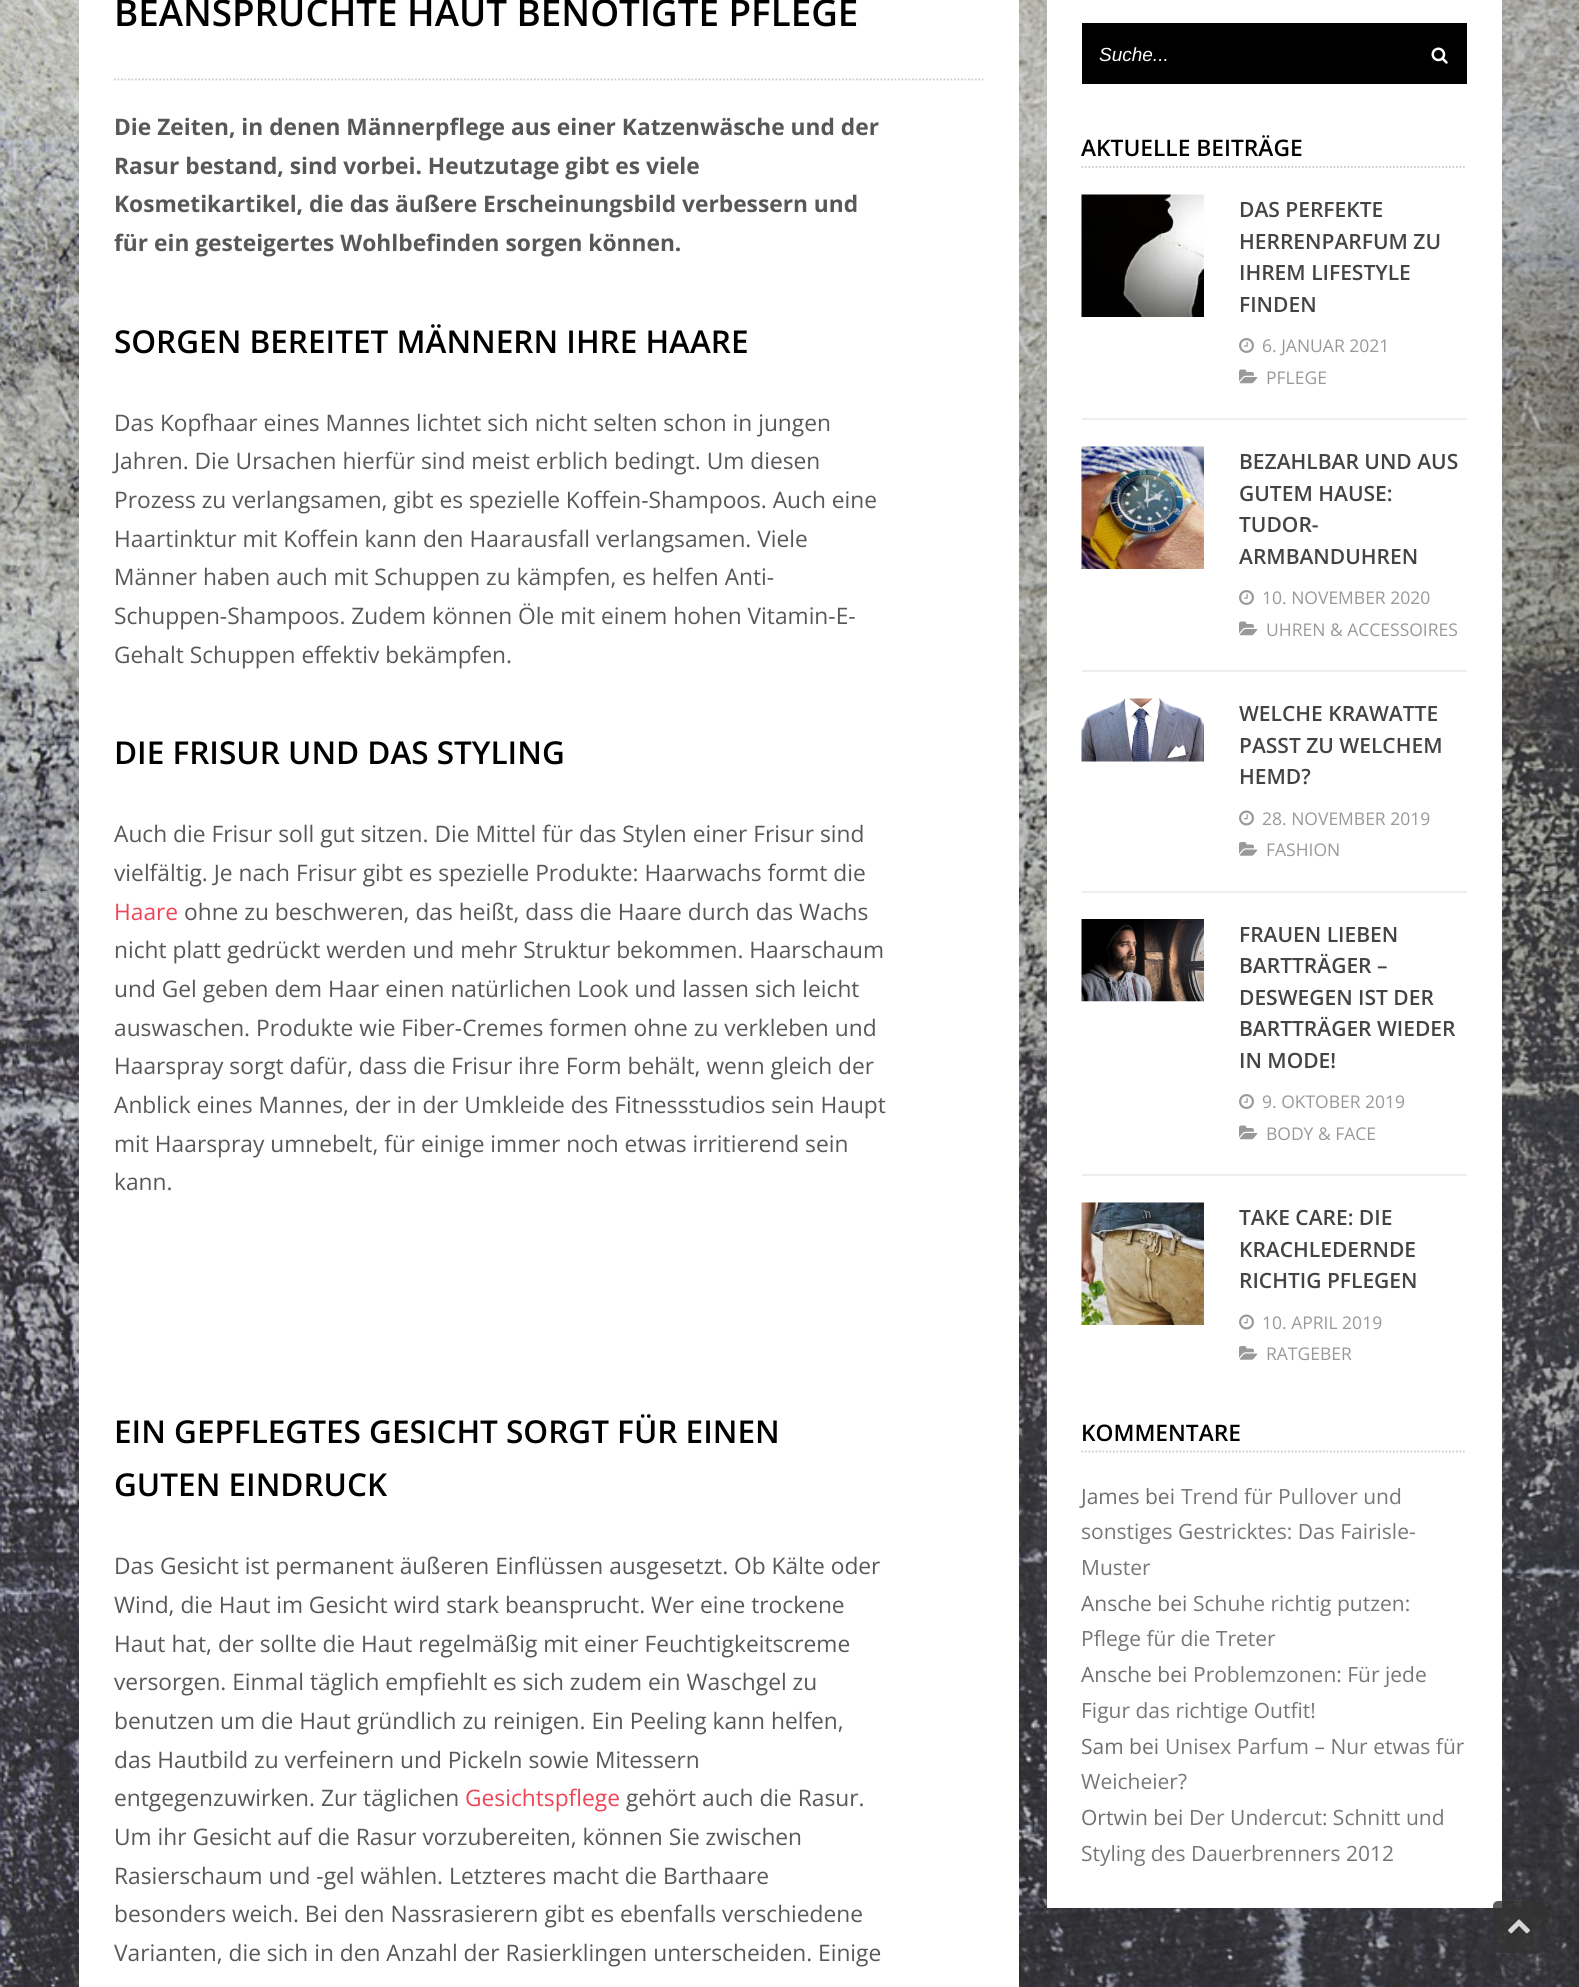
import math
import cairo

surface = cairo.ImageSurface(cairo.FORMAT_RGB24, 1579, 1987)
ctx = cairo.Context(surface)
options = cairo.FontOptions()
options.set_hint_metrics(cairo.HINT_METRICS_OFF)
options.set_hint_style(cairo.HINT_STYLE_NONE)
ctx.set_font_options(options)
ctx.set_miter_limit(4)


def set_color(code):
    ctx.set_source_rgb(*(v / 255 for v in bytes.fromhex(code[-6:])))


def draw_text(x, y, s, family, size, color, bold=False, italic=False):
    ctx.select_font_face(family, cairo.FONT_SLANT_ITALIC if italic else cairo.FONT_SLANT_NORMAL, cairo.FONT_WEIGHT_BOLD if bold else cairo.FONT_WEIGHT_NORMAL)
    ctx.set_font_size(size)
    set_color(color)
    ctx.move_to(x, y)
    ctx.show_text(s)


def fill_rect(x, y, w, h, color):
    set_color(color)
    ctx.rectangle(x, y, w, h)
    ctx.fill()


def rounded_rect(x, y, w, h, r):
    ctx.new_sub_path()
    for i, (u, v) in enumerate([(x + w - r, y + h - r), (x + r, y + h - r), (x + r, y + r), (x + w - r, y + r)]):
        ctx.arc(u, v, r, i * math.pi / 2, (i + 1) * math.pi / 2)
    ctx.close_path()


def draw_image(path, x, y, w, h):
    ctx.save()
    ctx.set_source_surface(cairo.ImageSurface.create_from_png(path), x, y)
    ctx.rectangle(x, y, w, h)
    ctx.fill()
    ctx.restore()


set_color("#ffffff")
ctx.paint()
draw_image("assets/img1.png", 0, 0, 1579, 1987)
fill_rect(79, 0, 940, 1987, "#ffffff")
ctx.new_path()
ctx.move_to(114, 79.5)
ctx.line_to(983.5, 79.5)
set_color("#cccccc")
ctx.set_line_width(1.8)
ctx.set_dash([1.75, 1.75])
ctx.stroke()
draw_text(114, 26, "BEANSPRUCHTE HAUT BENÖTIGTE PFLEGE", "Open Sans SemiBold", 36.75, "#000000")
draw_text(114, 135, "Die Zeiten, in denen Männerpflege aus einer Katzenwäsche und der", "Open Sans", 22.75, "#585858", bold=True)
draw_text(114, 174, "Rasur bestand, sind vorbei. Heutzutage gibt es viele", "Open Sans", 22.75, "#585858", bold=True)
draw_text(114, 212, "Kosmetikartikel, die das äußere Erscheinungsbild verbessern und", "Open Sans", 22.75, "#585858", bold=True)
draw_text(114, 251, "für ein gesteigertes Wohlbefinden sorgen können.", "Open Sans", 22.75, "#585858", bold=True)
draw_text(114, 353, "SORGEN BEREITET MÄNNERN IHRE HAARE", "Open Sans SemiBold", 31.5, "#000000")
draw_text(114, 431, "Das Kopfhaar eines Mannes lichtet sich nicht selten schon in jungen", "Open Sans", 22.75, "#585858")
draw_text(114, 469, "Jahren. Die Ursachen hierfür sind meist erblich bedingt. Um diesen", "Open Sans", 22.75, "#585858")
draw_text(114, 508, "Prozess zu verlangsamen, gibt es spezielle Koffein-Shampoos. Auch eine", "Open Sans", 22.75, "#585858")
draw_text(114, 547, "Haartinktur mit Koffein kann den Haarausfall verlangsamen. Viele", "Open Sans", 22.75, "#585858")
draw_text(114, 585, "Männer haben auch mit Schuppen zu kämpfen, es helfen Anti-", "Open Sans", 22.75, "#585858")
draw_text(114, 624, "Schuppen-Shampoos. Zudem können Öle mit einem hohen Vitamin-E-", "Open Sans", 22.75, "#585858")
draw_text(114, 663, "Gehalt Schuppen effektiv bekämpfen.", "Open Sans", 22.75, "#585858")
draw_text(114, 764, "DIE FRISUR UND DAS STYLING", "Open Sans SemiBold", 31.5, "#000000")
draw_text(114, 842, "Auch die Frisur soll gut sitzen. Die Mittel für das Stylen einer Frisur sind", "Open Sans", 22.75, "#585858")
draw_text(114, 881, "vielfältig. Je nach Frisur gibt es spezielle Produkte: Haarwachs formt die", "Open Sans", 22.75, "#585858")
draw_text(114, 920, "Haare", "Open Sans", 22.75, "#ed4555")
draw_text(184, 920, "ohne zu beschweren, das heißt, dass die Haare durch das Wachs", "Open Sans", 22.75, "#585858")
draw_text(114, 958, "nicht platt gedrückt werden und mehr Struktur bekommen. Haarschaum", "Open Sans", 22.75, "#585858")
draw_text(114, 997, "und Gel geben dem Haar einen natürlichen Look und lassen sich leicht", "Open Sans", 22.75, "#585858")
draw_text(114, 1036, "auswaschen. Produkte wie Fiber-Cremes formen ohne zu verkleben und", "Open Sans", 22.75, "#585858")
draw_text(114, 1074, "Haarspray sorgt dafür, dass die Frisur ihre Form behält, wenn gleich der", "Open Sans", 22.75, "#585858")
draw_text(114, 1113, "Anblick eines Mannes, der in der Umkleide des Fitnessstudios sein Haupt", "Open Sans", 22.75, "#585858")
draw_text(114, 1152, "mit Haarspray umnebelt, für einige immer noch etwas irritierend sein", "Open Sans", 22.75, "#585858")
draw_text(114, 1190, "kann.", "Open Sans", 22.75, "#585858")
draw_text(114, 1443, "EIN GEPFLEGTES GESICHT SORGT FÜR EINEN", "Open Sans SemiBold", 31.5, "#000000")
draw_text(114, 1496, "GUTEN EINDRUCK", "Open Sans SemiBold", 31.5, "#000000")
draw_text(114, 1574, "Das Gesicht ist permanent äußeren Einflüssen ausgesetzt. Ob Kälte oder", "Open Sans", 22.75, "#585858")
draw_text(114, 1613, "Wind, die Haut im Gesicht wird stark beansprucht. Wer eine trockene", "Open Sans", 22.75, "#585858")
draw_text(114, 1652, "Haut hat, der sollte die Haut regelmäßig mit einer Feuchtigkeitscreme", "Open Sans", 22.75, "#585858")
draw_text(114, 1690, "versorgen. Einmal täglich empfiehlt es sich zudem ein Waschgel zu", "Open Sans", 22.75, "#585858")
draw_text(114, 1729, "benutzen um die Haut gründlich zu reinigen. Ein Peeling kann helfen,", "Open Sans", 22.75, "#585858")
draw_text(114, 1768, "das Hautbild zu verfeinern und Pickeln sowie Mitessern", "Open Sans", 22.75, "#585858")
draw_text(114, 1806, "entgegenzuwirken. Zur täglichen", "Open Sans", 22.75, "#585858")
draw_text(465, 1806, "Gesichtspflege", "Open Sans", 22.75, "#ed4555")
draw_text(626, 1806, "gehört auch die Rasur.", "Open Sans", 22.75, "#585858")
draw_text(114, 1845, "Um ihr Gesicht auf die Rasur vorzubereiten, können Sie zwischen", "Open Sans", 22.75, "#585858")
draw_text(114, 1884, "Rasierschaum und -gel wählen. Letzteres macht die Barthaare", "Open Sans", 22.75, "#585858")
draw_text(114, 1922, "besonders weich. Bei den Nassrasierern gibt es ebenfalls verschiedene", "Open Sans", 22.75, "#585858")
draw_text(114, 1961, "Varianten, die sich in den Anzahl der Rasierklingen unterscheiden. Einige", "Open Sans", 22.75, "#585858")
fill_rect(1047, 0, 455, 1908, "#ffffff")
fill_rect(1082, 23, 385, 61, "#000000")
draw_text(1099, 61, "Suche...", "Liberation Sans", 19, "#ffffff", italic=True)
draw_image("assets/img2.png", 1431, 47, 17, 17)
ctx.new_path()
ctx.move_to(1081.5, 167)
ctx.line_to(1466.5, 167)
set_color("#cccccc")
ctx.stroke()
draw_text(1081, 156, "AKTUELLE BEITRÄGE", "Open Sans SemiBold", 22.75, "#000000")
fill_rect(1082, 418, 385, 2, "#eeeeee")
draw_image("assets/img3.png", 1081, 194, 123, 123)
draw_text(1239, 217, "DAS PERFEKTE", "Open Sans SemiBold", 21, "#444444")
draw_text(1239, 249, "HERRENPARFUM ZU", "Open Sans SemiBold", 21, "#444444")
draw_text(1239, 280, "IHREM LIFESTYLE", "Open Sans SemiBold", 21, "#444444")
draw_text(1239, 312, "FINDEN", "Open Sans SemiBold", 21, "#444444")
draw_image("assets/img4.png", 1239, 338, 15, 15)
draw_text(1262, 352, "6. JANUAR 2021", "Open Sans", 17.5, "#999999")
draw_image("assets/img5.png", 1239, 369, 19, 15)
draw_text(1266, 384, "PFLEGE", "Open Sans", 17.5, "#999999")
fill_rect(1082, 670, 385, 2, "#eeeeee")
draw_image("assets/img6.png", 1081, 446, 123, 123)
draw_text(1239, 469, "BEZAHLBAR UND AUS", "Open Sans SemiBold", 21, "#444444")
draw_text(1239, 501, "GUTEM HAUSE:", "Open Sans SemiBold", 21, "#444444")
draw_text(1239, 532, "TUDOR-", "Open Sans SemiBold", 21, "#444444")
draw_text(1239, 564, "ARMBANDUHREN", "Open Sans SemiBold", 21, "#444444")
draw_image("assets/img4.png", 1239, 590, 15, 15)
draw_text(1262, 604, "10. NOVEMBER 2020", "Open Sans", 17.5, "#999999")
draw_image("assets/img5.png", 1239, 621, 19, 15)
draw_text(1266, 636, "UHREN & ACCESSOIRES", "Open Sans", 17.5, "#999999")
fill_rect(1082, 891, 385, 2, "#eeeeee")
draw_image("assets/img7.png", 1081, 698, 123, 64)
draw_text(1239, 721, "WELCHE KRAWATTE", "Open Sans SemiBold", 21, "#444444")
draw_text(1239, 753, "PASST ZU WELCHEM", "Open Sans SemiBold", 21, "#444444")
draw_text(1239, 784, "HEMD?", "Open Sans SemiBold", 21, "#444444")
draw_image("assets/img8.png", 1239, 810, 15, 16)
draw_text(1262, 825, "28. NOVEMBER 2019", "Open Sans", 17.5, "#999999")
draw_image("assets/img9.png", 1239, 842, 19, 14)
draw_text(1266, 856, "FASHION", "Open Sans", 17.5, "#999999")
fill_rect(1082, 1174, 385, 2, "#eeeeee")
draw_image("assets/img10.png", 1081, 919, 123, 83)
draw_text(1239, 942, "FRAUEN LIEBEN", "Open Sans SemiBold", 21, "#444444")
draw_text(1239, 973, "BARTTRÄGER –", "Open Sans SemiBold", 21, "#444444")
draw_text(1239, 1005, "DESWEGEN IST DER", "Open Sans SemiBold", 21, "#444444")
draw_text(1239, 1036, "BARTTRÄGER WIEDER", "Open Sans SemiBold", 21, "#444444")
draw_text(1239, 1068, "IN MODE!", "Open Sans SemiBold", 21, "#444444")
draw_image("assets/img4.png", 1239, 1094, 15, 15)
draw_text(1262, 1108, "9. OKTOBER 2019", "Open Sans", 17.5, "#999999")
draw_image("assets/img5.png", 1239, 1125, 19, 15)
draw_text(1266, 1140, "BODY & FACE", "Open Sans", 17.5, "#999999")
draw_image("assets/img11.png", 1081, 1202, 123, 123)
draw_text(1239, 1225, "TAKE CARE: DIE", "Open Sans SemiBold", 21, "#444444")
draw_text(1239, 1257, "KRACHLEDERNDE", "Open Sans SemiBold", 21, "#444444")
draw_text(1239, 1288, "RICHTIG PFLEGEN", "Open Sans SemiBold", 21, "#444444")
draw_image("assets/img8.png", 1239, 1314, 15, 16)
draw_text(1262, 1329, "10. APRIL 2019", "Open Sans", 17.5, "#999999")
draw_image("assets/img9.png", 1239, 1346, 19, 14)
draw_text(1266, 1360, "RATGEBER", "Open Sans", 17.5, "#999999")
ctx.new_path()
ctx.move_to(1081.5, 1451.5)
ctx.line_to(1466.5, 1451.5)
set_color("#cccccc")
ctx.stroke()
draw_text(1081, 1441, "KOMMENTARE", "Open Sans SemiBold", 22.75, "#000000")
draw_text(1081, 1504, "James bei", "Open Sans", 21, "#6f6f6f")
draw_text(1181, 1504, "Trend für Pullover und", "Open Sans", 21, "#777777")
draw_text(1081, 1539, "sonstiges Gestricktes: Das Fairisle-", "Open Sans", 21, "#777777")
draw_text(1081, 1575, "Muster", "Open Sans", 21, "#777777")
draw_text(1081, 1611, "Ansche bei", "Open Sans", 21, "#6f6f6f")
draw_text(1193, 1611, "Schuhe richtig putzen:", "Open Sans", 21, "#777777")
draw_text(1081, 1646, "Pflege für die Treter", "Open Sans", 21, "#777777")
draw_text(1081, 1682, "Ansche bei", "Open Sans", 21, "#6f6f6f")
draw_text(1193, 1682, "Problemzonen: Für jede", "Open Sans", 21, "#777777")
draw_text(1081, 1718, "Figur das richtige Outfit!", "Open Sans", 21, "#777777")
draw_text(1081, 1754, "Sam bei", "Open Sans", 21, "#6f6f6f")
draw_text(1165, 1754, "Unisex Parfum – Nur etwas für", "Open Sans", 21, "#777777")
draw_text(1081, 1789, "Weicheier?", "Open Sans", 21, "#777777")
draw_text(1081, 1825, "Ortwin bei", "Open Sans", 21, "#6f6f6f")
draw_text(1189, 1825, "Der Undercut: Schnitt und", "Open Sans", 21, "#777777")
draw_text(1081, 1861, "Styling des Dauerbrenners 2012", "Open Sans", 21, "#777777")
ctx.set_source_rgba(0.2, 0.2, 0.2, 0.8)
rounded_rect(1493, 1901, 52, 52, 5)
ctx.fill()
draw_image("assets/img12.png", 1508, 1919, 22, 15)
surface.write_to_png("output.png")
